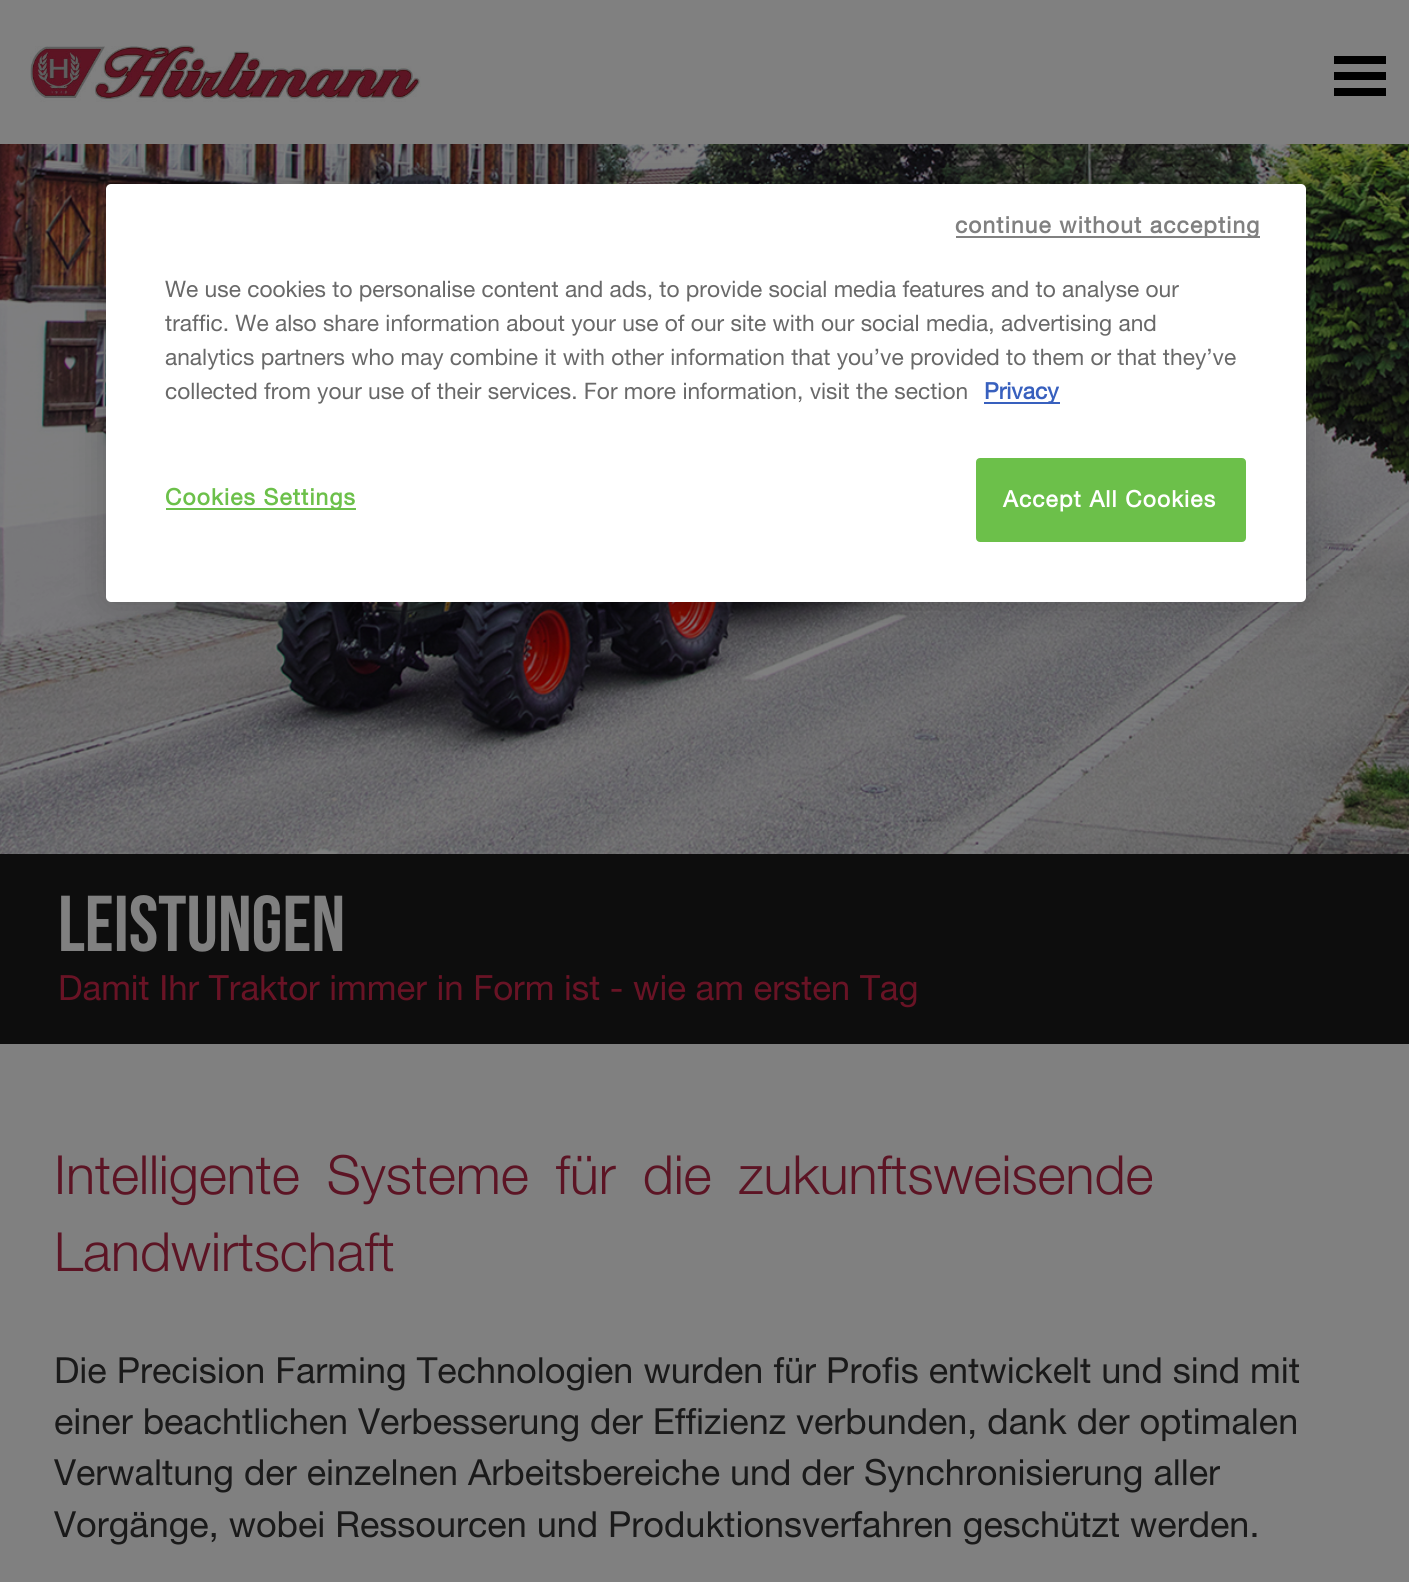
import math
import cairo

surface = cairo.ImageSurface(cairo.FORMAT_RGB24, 1409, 1582)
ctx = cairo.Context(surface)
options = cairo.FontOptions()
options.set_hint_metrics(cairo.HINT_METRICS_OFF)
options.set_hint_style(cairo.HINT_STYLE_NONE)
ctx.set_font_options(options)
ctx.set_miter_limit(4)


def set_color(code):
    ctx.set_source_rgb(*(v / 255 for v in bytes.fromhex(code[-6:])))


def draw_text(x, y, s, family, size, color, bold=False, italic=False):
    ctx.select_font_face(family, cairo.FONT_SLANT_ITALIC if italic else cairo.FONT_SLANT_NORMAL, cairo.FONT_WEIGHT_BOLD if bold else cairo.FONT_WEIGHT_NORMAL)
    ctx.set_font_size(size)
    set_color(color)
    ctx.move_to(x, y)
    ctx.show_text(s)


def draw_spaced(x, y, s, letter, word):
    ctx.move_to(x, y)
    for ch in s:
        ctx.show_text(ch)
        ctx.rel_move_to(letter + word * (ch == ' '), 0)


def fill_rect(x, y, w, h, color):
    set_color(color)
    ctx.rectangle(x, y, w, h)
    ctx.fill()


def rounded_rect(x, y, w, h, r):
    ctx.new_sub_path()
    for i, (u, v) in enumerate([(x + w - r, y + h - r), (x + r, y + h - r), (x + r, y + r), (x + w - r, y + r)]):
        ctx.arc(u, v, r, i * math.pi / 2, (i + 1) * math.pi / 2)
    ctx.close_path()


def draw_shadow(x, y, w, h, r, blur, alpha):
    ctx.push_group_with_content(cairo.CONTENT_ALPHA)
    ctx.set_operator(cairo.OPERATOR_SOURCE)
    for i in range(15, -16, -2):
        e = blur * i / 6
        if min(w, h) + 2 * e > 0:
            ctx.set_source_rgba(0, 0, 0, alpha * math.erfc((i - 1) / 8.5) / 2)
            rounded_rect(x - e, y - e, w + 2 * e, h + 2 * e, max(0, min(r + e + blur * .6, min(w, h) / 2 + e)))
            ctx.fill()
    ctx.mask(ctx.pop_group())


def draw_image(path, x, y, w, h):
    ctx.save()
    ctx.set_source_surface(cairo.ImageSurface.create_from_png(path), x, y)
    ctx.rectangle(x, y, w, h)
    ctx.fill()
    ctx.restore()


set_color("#808080")
ctx.paint()
draw_image("assets/img2.png", 0, 144, 1409, 710)
set_color("#000000")
draw_shadow(106, 184, 1200, 418, 5, 18, 0.2)
set_color("#ffffff")
rounded_rect(106, 184, 1200, 418, 5)
ctx.fill()
fill_rect(166, 508, 190, 2, "#6cc04a")
ctx.select_font_face("Helvetica Neue", cairo.FONT_SLANT_NORMAL, cairo.FONT_WEIGHT_BOLD)
ctx.set_font_size(22.75)
draw_spaced(165, 505, "Cookies Settings", 1.15, 0)
fill_rect(956, 236, 304, 2, "#808080")
draw_spaced(955, 233, "continue without accepting", 1.15, 0)
set_color("#6cc04a")
rounded_rect(977, 459, 268, 82, 3)
ctx.fill_preserve()
ctx.stroke()
set_color("#ffffff")
draw_spaced(1003, 507, "Accept All Cookies", 1.15, 0)
draw_text(165, 297, "We use cookies to personalise content and ads, to provide social media features and to analyse our", "Helvetica Neue", 22.75, "#696969")
draw_text(165, 331, "traffic. We also share information about your use of our site with our social media, advertising and", "Helvetica Neue", 22.75, "#696969")
draw_text(165, 365, "analytics partners who may combine it with other information that you’ve provided to them or that they’ve", "Helvetica Neue", 22.75, "#696969")
draw_text(165, 399, "collected from your use of their services. For more information, visit the section", "Helvetica Neue", 22.75, "#696969")
fill_rect(984, 402, 76, 2, "#3860be")
draw_text(984, 399, "Privacy", "Helvetica Neue", 22.75, "#3860be", bold=True)
draw_image("assets/img1.png", 30, 45, 391, 57)
fill_rect(1334, 56, 52, 8, "#000000")
fill_rect(1334, 72, 52, 8, "#000000")
fill_rect(1334, 88, 52, 8, "#000000")
fill_rect(0, 854, 1409, 190, "#0d0d0d")
draw_text(58, 951, "LEISTUNGEN", "Bebas Neue", 79, "#808080", bold=True)
draw_text(58, 1000, "Damit Ihr Traktor immer in Form ist - wie am ersten Tag", "Helvetica Neue", 34.8, "#691325")
draw_text(54, 1194, "Intelligente Systeme für die zukunftsweisende", "Helvetica Neue Light", 54, "#5c1424")
draw_text(54, 1271, "Landwirtschaft", "Helvetica Neue Light", 54, "#5c1424")
draw_text(54, 1383, "Die Precision Farming Technologien wurden für Profis entwickelt und sind mit", "Helvetica Neue", 36, "#1a1a1a")
draw_text(54, 1434, "einer beachtlichen Verbesserung der Effizienz verbunden, dank der optimalen", "Helvetica Neue", 36, "#1a1a1a")
draw_text(54, 1485, "Verwaltung der einzelnen Arbeitsbereiche und der Synchronisierung aller", "Helvetica Neue", 36, "#1a1a1a")
draw_text(54, 1537, "Vorgänge, wobei Ressourcen und Produktionsverfahren geschützt werden.", "Helvetica Neue", 36, "#1a1a1a")
surface.write_to_png("output.png")
